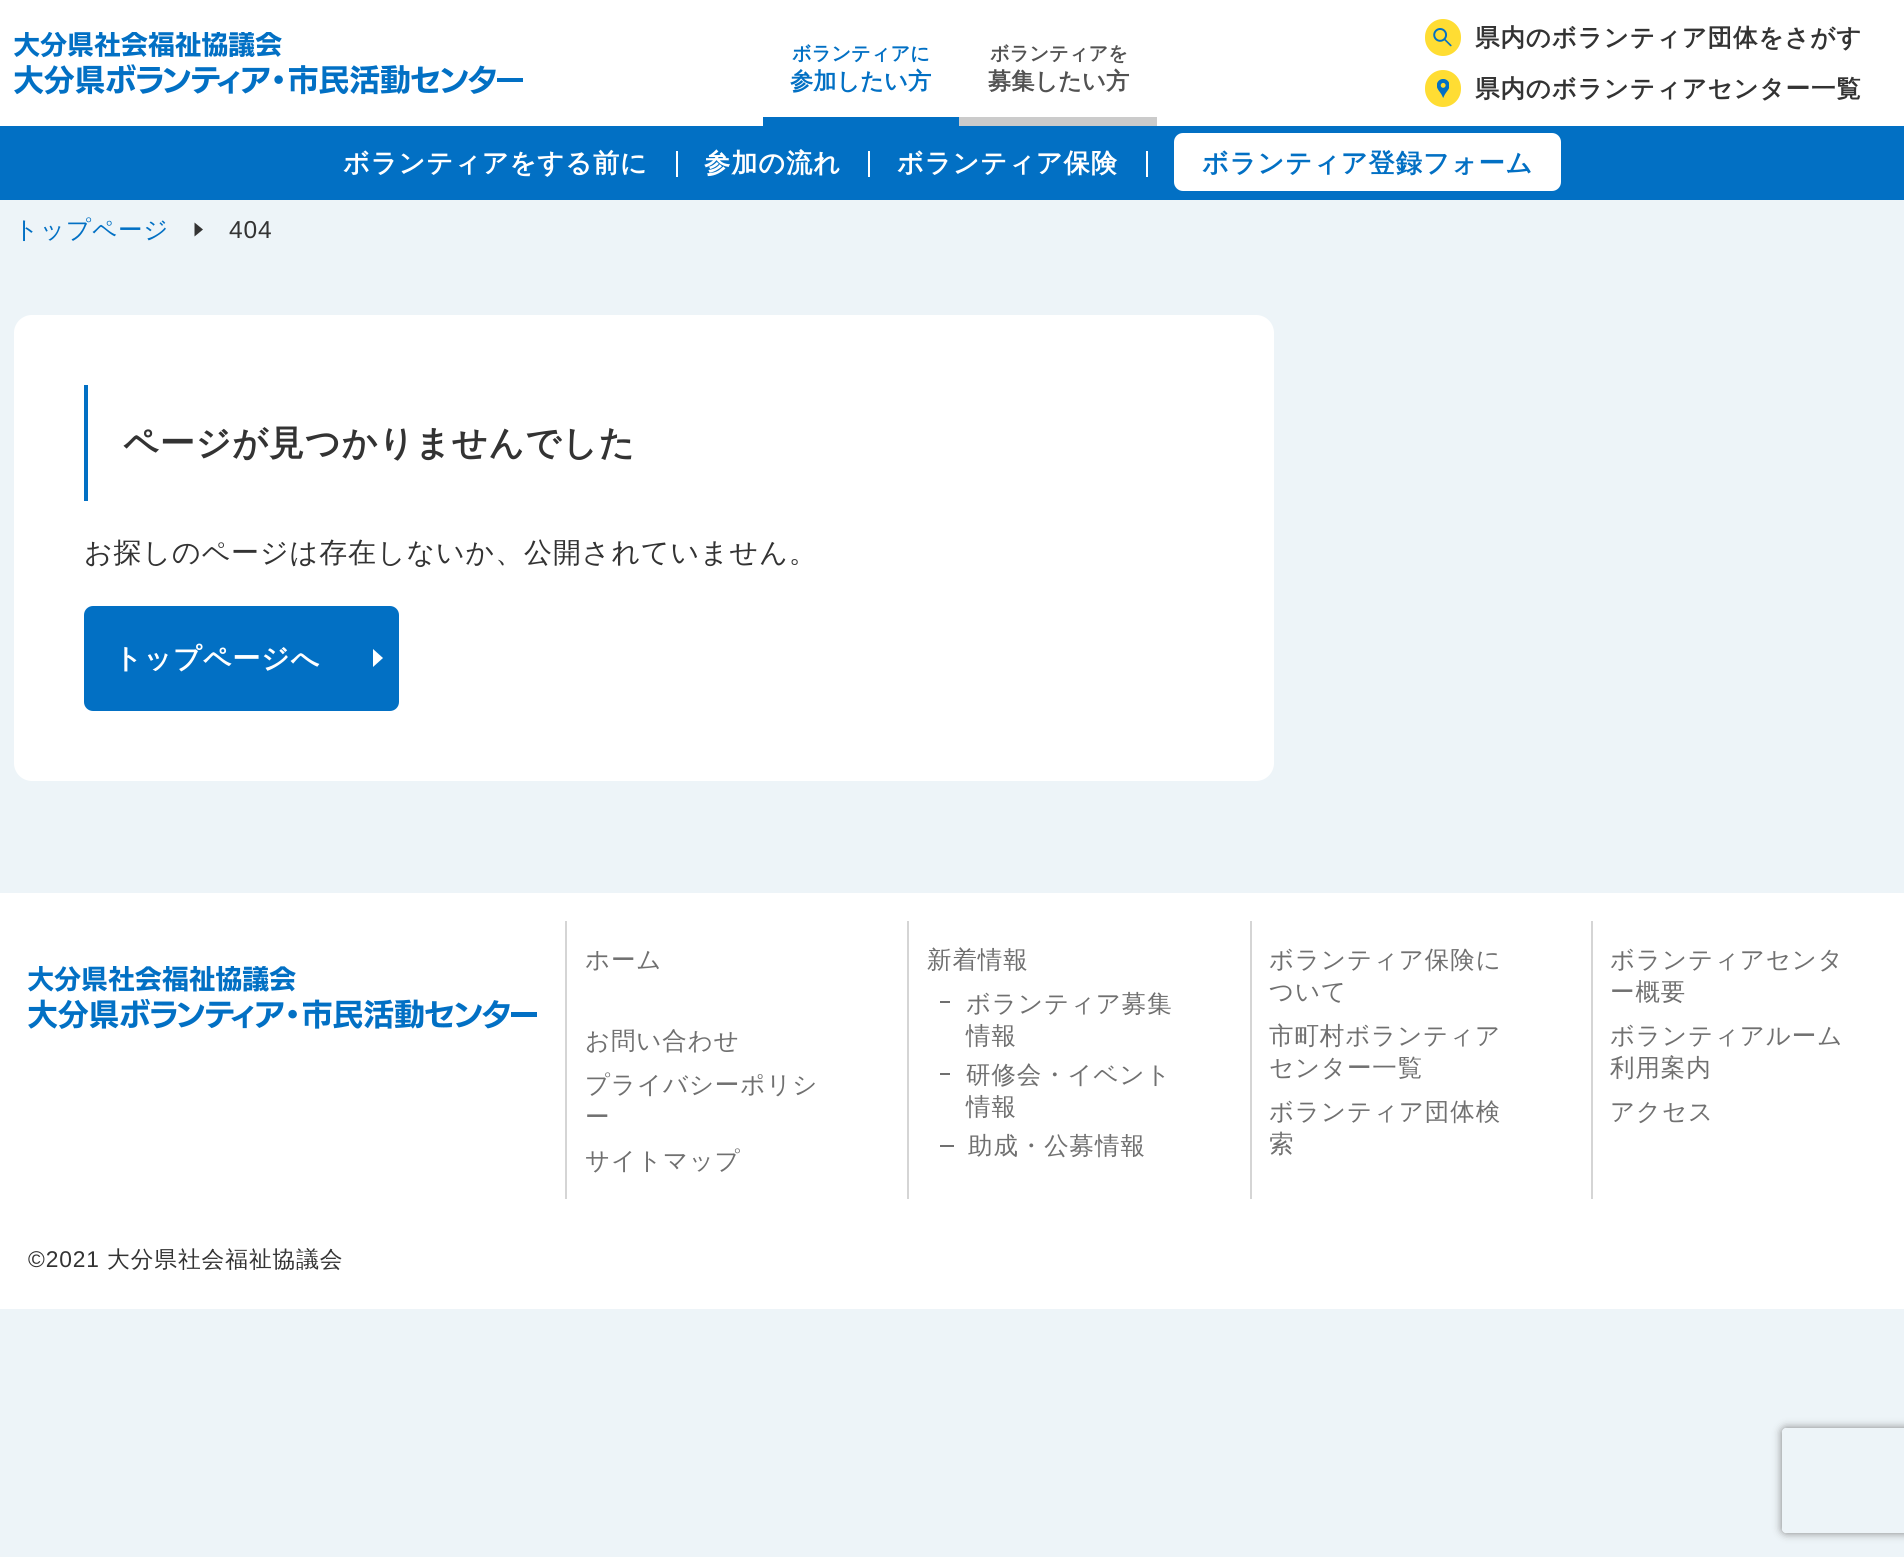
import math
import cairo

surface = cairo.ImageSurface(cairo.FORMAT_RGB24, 1904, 1557)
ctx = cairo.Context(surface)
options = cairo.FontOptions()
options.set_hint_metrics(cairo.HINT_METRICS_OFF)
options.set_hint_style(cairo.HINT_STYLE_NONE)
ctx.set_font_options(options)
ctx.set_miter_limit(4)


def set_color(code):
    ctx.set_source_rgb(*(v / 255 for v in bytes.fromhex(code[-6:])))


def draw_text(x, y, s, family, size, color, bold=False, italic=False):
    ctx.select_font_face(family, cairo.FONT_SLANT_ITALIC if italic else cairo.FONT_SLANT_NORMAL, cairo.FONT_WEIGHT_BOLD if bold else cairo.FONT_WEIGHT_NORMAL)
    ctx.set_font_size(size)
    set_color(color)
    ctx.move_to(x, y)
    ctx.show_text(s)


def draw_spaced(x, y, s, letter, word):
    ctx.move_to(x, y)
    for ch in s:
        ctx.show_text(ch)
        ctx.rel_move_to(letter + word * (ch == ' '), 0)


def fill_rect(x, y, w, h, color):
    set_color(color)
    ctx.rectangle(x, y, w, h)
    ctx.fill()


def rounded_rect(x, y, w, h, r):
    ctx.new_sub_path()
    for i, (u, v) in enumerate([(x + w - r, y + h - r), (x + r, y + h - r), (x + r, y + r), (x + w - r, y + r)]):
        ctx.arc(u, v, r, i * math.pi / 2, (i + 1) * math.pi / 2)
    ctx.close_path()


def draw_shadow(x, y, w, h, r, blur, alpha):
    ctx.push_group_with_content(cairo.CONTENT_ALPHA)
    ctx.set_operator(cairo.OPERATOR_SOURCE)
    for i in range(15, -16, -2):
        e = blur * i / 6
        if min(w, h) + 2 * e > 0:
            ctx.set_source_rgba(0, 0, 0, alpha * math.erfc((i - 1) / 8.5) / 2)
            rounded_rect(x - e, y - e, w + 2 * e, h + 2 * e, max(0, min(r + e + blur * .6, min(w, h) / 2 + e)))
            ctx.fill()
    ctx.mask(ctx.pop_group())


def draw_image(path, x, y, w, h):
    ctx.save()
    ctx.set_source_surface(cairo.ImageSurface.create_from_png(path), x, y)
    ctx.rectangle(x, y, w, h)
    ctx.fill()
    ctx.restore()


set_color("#edf4f8")
ctx.paint()
fill_rect(0, 0, 1904, 126, "#ffffff")
draw_image("assets/img1.png", 14, 32, 509, 63)
draw_text(792, 60, "ボランティアに", "WenQuanYi Zen Hei", 19.25, "#0270c4", bold=True)
draw_text(790, 89, "参加したい方", "WenQuanYi Zen Hei", 23.25, "#0270c4", bold=True)
fill_rect(763, 117, 196, 9, "#0270c4")
draw_text(990, 60, "ボランティアを", "WenQuanYi Zen Hei", 19.25, "#525252", bold=True)
draw_text(988, 89, "募集したい方", "WenQuanYi Zen Hei", 23.25, "#525252", bold=True)
fill_rect(959, 117, 198, 9, "#cbcbcb")
set_color("#ffdd33")
rounded_rect(1425, 19, 36, 37, 18)
ctx.fill()
draw_image("assets/img2.png", 1433, 28, 19, 19)
ctx.set_font_size(24.5)
set_color("#333333")
draw_spaced(1475, 46, "県内のボランティア団体をさがす", 0.9, 0)
set_color("#ffdd33")
rounded_rect(1425, 70, 36, 37, 18)
ctx.fill()
draw_image("assets/img3.png", 1437, 79, 12, 19)
set_color("#333333")
draw_spaced(1475, 97, "県内のボランティアセンター一覧", 0.9, 0)
fill_rect(0, 126, 1904, 74, "#0270c4")
ctx.set_font_size(26.25)
set_color("#ffffff")
draw_spaced(343, 172, "ボランティアをする前に", 0.9, 0)
fill_rect(676, 151, 2, 26, "#ffffff")
draw_spaced(704, 172, "参加の流れ", 0.9, 0)
fill_rect(868, 151, 2, 26, "#ffffff")
draw_spaced(897, 172, "ボランティア保険", 0.9, 0)
fill_rect(1146, 151, 2, 26, "#ffffff")
rounded_rect(1174, 133, 387, 58, 9)
ctx.fill()
set_color("#0270c4")
draw_spaced(1202, 172, "ボランティア登録フォーム", 0.9, 0)
ctx.select_font_face("WenQuanYi Zen Hei Medium")
ctx.set_font_size(24.5)
draw_spaced(14, 238, "トップページ", 0.9, 0)
set_color("#333333")
ctx.new_path()
ctx.move_to(194.5, 236.5)
ctx.line_to(194.5, 222.5)
ctx.line_to(203, 229.5)
ctx.close_path()
ctx.fill()
ctx.select_font_face("Liberation Sans")
draw_spaced(229, 238, "404", 0.9, 0)
set_color("#ffffff")
rounded_rect(14, 315, 1260, 466, 18)
ctx.fill()
fill_rect(84, 385, 4, 116, "#0270c4")
ctx.select_font_face("WenQuanYi Zen Hei", cairo.FONT_SLANT_NORMAL, cairo.FONT_WEIGHT_BOLD)
ctx.set_font_size(35)
set_color("#333333")
draw_spaced(123, 455, "ページが見つかりませんでした", 0.9, 0)
ctx.select_font_face("WenQuanYi Zen Hei Medium")
ctx.set_font_size(28)
draw_spaced(84, 562, "お探しのページは存在しないか、公開されていません。", 0.9, 0)
set_color("#0270c4")
rounded_rect(85, 607, 313, 103, 8)
ctx.fill_preserve()
ctx.stroke()
ctx.select_font_face("WenQuanYi Zen Hei", cairo.FONT_SLANT_NORMAL, cairo.FONT_WEIGHT_BOLD)
set_color("#ffffff")
draw_spaced(114, 668, "トップページへ", 0.9, 0)
ctx.new_path()
ctx.move_to(373, 667)
ctx.line_to(373, 649)
ctx.line_to(383, 658)
ctx.close_path()
ctx.fill()
fill_rect(0, 893, 1904, 416, "#ffffff")
draw_image("assets/img4.png", 28, 966, 509, 63)
fill_rect(565, 921, 2, 278, "#d5d5d5")
ctx.select_font_face("WenQuanYi Zen Hei Medium")
ctx.set_font_size(24.5)
set_color("#707070")
draw_spaced(585, 968, "ホーム", 0.9, 0)
draw_spaced(585, 1049, "お問い合わせ", 0.9, 0)
draw_spaced(585, 1093, "プライバシーポリシ", 0.9, 0)
draw_spaced(585, 1125, "ー", 0.9, 0)
draw_spaced(585, 1169, "サイトマップ", 0.9, 0)
fill_rect(907, 921, 2, 278, "#d5d5d5")
set_color("#707070")
draw_spaced(927, 968, "新着情報", 0.9, 0)
fill_rect(940, 1001, 10, 2, "#707070")
draw_spaced(966, 1012, "ボランティア募集", 0.9, 0)
draw_spaced(966, 1044, "情報", 0.9, 0)
fill_rect(940, 1073, 10, 2, "#707070")
draw_spaced(966, 1083, "研修会・イベント", 0.9, 0)
draw_spaced(966, 1115, "情報", 0.9, 0)
fill_rect(940, 1145, 14, 2, "#707070")
draw_spaced(968, 1154, "助成・公募情報", 0.9, 0)
fill_rect(1250, 921, 2, 278, "#d5d5d5")
set_color("#707070")
draw_spaced(1269, 968, "ボランティア保険に", 0.9, 0)
draw_spaced(1269, 1000, "ついて", 0.9, 0)
draw_spaced(1269, 1044, "市町村ボランティア", 0.9, 0)
draw_spaced(1269, 1076, "センター一覧", 0.9, 0)
draw_spaced(1269, 1120, "ボランティア団体検", 0.9, 0)
draw_spaced(1269, 1152, "索", 0.9, 0)
fill_rect(1591, 921, 2, 278, "#d5d5d5")
set_color("#707070")
draw_spaced(1610, 968, "ボランティアセンタ", 0.9, 0)
draw_spaced(1610, 1000, "ー概要", 0.9, 0)
draw_spaced(1610, 1044, "ボランティアルーム", 0.9, 0)
draw_spaced(1610, 1076, "利用案内", 0.9, 0)
draw_spaced(1610, 1120, "アクセス", 0.9, 0)
ctx.select_font_face("Liberation Sans")
ctx.set_font_size(22.75)
set_color("#333333")
draw_spaced(28, 1267, "©2021", 0.9, 0)
ctx.select_font_face("WenQuanYi Zen Hei Medium")
draw_spaced(107, 1267, "大分県社会福祉協議会", 0.9, 0)
ctx.save()
ctx.set_fill_rule(cairo.FILL_RULE_EVEN_ODD)
ctx.new_path()
ctx.move_to(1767, 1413)
ctx.line_to(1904, 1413)
ctx.line_to(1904, 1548)
ctx.line_to(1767, 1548)
ctx.close_path()
ctx.move_to(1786, 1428)
ctx.line_to(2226, 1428)
ctx.curve_to(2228, 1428, 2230, 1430, 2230, 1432)
ctx.line_to(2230, 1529)
ctx.curve_to(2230, 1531, 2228, 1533, 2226, 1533)
ctx.line_to(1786, 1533)
ctx.curve_to(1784, 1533, 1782, 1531, 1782, 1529)
ctx.line_to(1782, 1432)
ctx.curve_to(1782, 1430, 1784, 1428, 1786, 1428)
ctx.close_path()
ctx.clip()
set_color("#808080")
draw_shadow(1782, 1428, 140, 105, 4, 4.5, 1)
ctx.restore()
surface.write_to_png("output.png")
